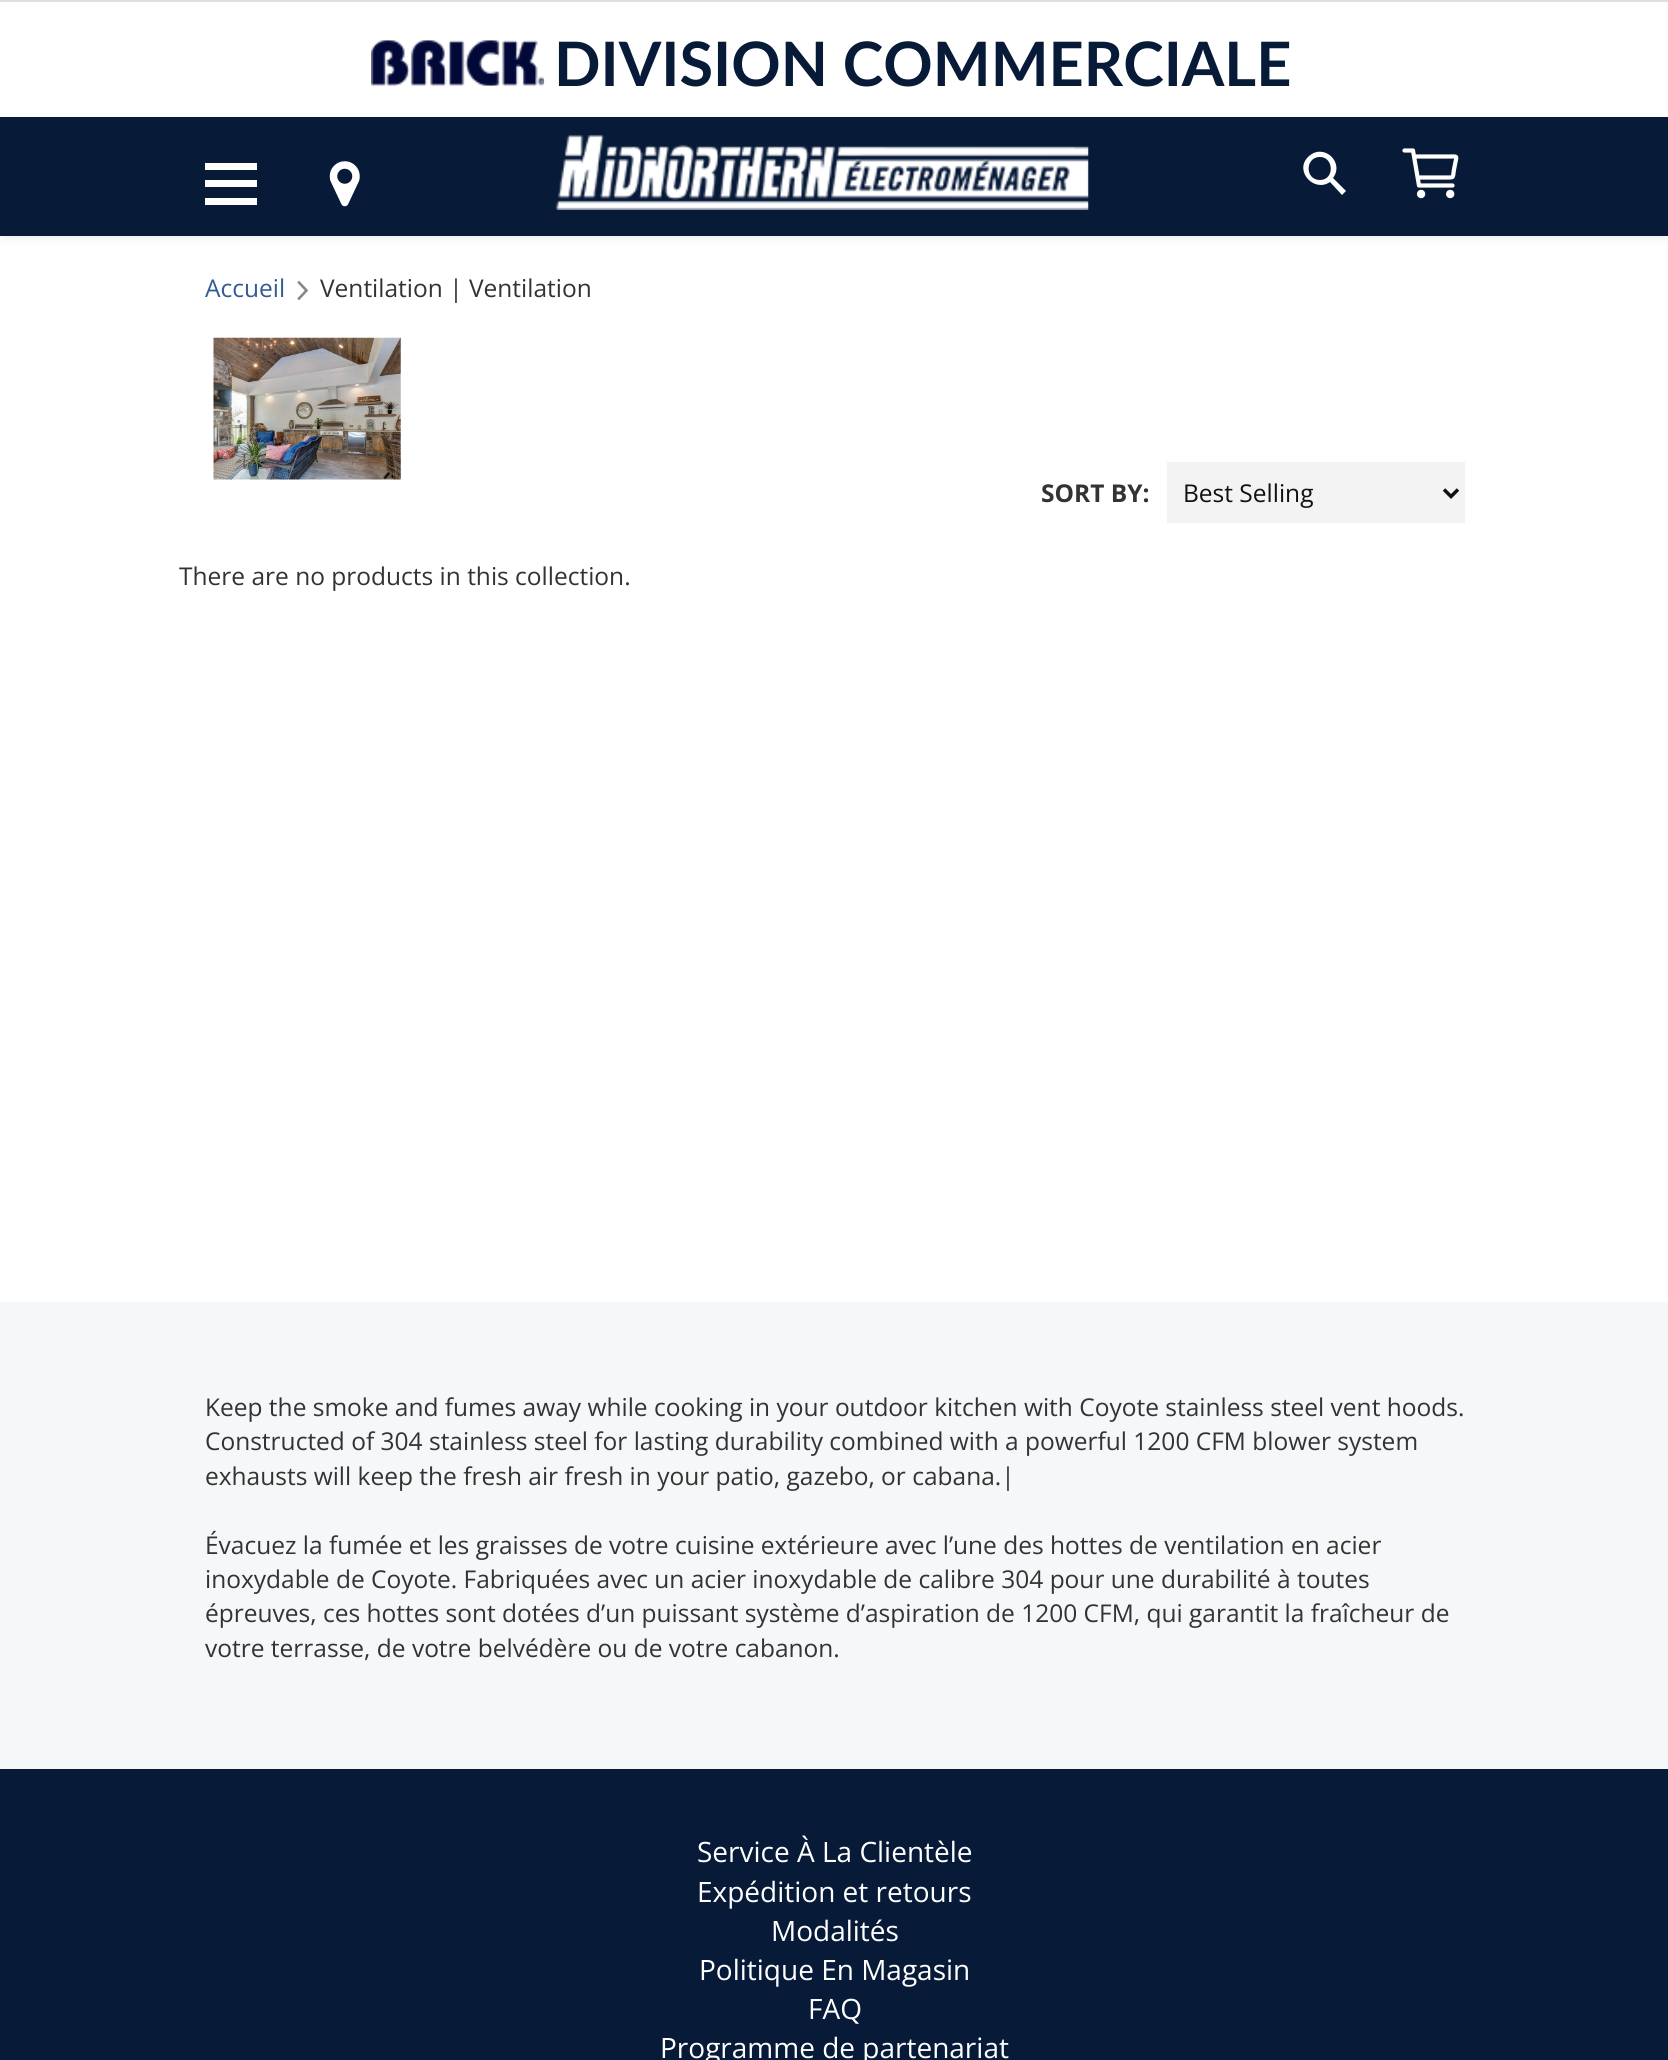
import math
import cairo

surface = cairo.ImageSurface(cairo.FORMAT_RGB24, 1668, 2060)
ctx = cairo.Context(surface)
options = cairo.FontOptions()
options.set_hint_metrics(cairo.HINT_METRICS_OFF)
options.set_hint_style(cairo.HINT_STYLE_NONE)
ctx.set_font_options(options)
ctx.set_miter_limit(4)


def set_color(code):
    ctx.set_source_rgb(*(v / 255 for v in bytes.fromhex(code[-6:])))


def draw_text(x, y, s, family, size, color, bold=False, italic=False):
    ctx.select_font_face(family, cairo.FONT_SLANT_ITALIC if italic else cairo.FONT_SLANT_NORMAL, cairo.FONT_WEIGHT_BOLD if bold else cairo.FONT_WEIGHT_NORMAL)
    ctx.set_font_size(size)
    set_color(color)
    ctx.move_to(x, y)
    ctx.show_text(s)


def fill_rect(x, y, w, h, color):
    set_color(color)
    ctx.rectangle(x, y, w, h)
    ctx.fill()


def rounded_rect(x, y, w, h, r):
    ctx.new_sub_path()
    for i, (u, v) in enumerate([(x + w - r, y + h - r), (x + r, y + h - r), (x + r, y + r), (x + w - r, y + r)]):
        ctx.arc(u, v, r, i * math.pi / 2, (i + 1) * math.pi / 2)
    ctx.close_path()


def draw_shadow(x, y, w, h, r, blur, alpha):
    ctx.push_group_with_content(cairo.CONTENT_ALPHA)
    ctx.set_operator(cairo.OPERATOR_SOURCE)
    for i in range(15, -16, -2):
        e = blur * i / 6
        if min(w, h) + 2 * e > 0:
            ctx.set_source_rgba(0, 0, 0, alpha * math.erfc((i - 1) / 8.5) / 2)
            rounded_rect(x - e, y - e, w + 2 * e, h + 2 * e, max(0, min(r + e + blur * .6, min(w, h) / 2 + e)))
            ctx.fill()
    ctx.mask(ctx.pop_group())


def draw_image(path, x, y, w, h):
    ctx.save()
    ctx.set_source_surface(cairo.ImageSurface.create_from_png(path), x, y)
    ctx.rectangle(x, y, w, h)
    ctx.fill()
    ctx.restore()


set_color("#ffffff")
ctx.paint()
fill_rect(0, 0, 1668, 2, "#dfdfdf")
draw_image("assets/img1.png", 371, 40, 174, 46)
draw_text(554, 86, "DIVISION COMMERCIALE", "Lato", 61.25, "#071a38", bold=True)
set_color("#0b191c")
draw_shadow(4, 124, 1662, 112, 0, 6, 0.12)
fill_rect(0, 117, 1668, 119, "#071a38")
fill_rect(205, 163, 52, 7, "#ffffff")
fill_rect(205, 180, 52, 7, "#ffffff")
fill_rect(205, 198, 52, 7, "#ffffff")
draw_image("assets/img2.png", 329, 161, 31, 46)
draw_image("assets/img3.png", 556, 134, 533, 76)
ctx.new_path()
ctx.move_to(1346, 191)
ctx.line_to(1333, 178)
ctx.curve_to(1345, 162, 1323, 142, 1308, 157)
ctx.curve_to(1294, 171, 1314, 193, 1330, 182)
ctx.line_to(1342, 195)
ctx.close_path()
ctx.move_to(1320, 180)
ctx.curve_to(1305, 180, 1305, 158, 1319, 157)
ctx.curve_to(1334, 156, 1335, 180, 1320, 180)
ctx.close_path()
ctx.fill()
ctx.new_path()
ctx.move_to(1404.5, 150.5)
ctx.line_to(1413, 150.5)
ctx.line_to(1419, 185.5)
ctx.line_to(1452.5, 185.5)
ctx.move_to(1419, 177.5)
ctx.line_to(1446, 177.5)
ctx.curve_to(1455.5, 177.5, 1452, 178, 1454.5, 167)
ctx.curve_to(1456.5, 155, 1459, 156.5, 1448.5, 156.5)
ctx.line_to(1415, 156.5)
ctx.set_line_width(4.2)
ctx.set_line_cap(cairo.LINE_CAP_ROUND)
ctx.set_line_join(cairo.LINE_JOIN_ROUND)
ctx.stroke()
ctx.arc(1421.1, 194, 2.1, 0, 2 * math.pi)
ctx.set_line_cap(cairo.LINE_CAP_BUTT)
ctx.set_line_join(cairo.LINE_JOIN_MITER)
ctx.stroke()
ctx.arc(1450.2, 194, 2.1, 0, 2 * math.pi)
ctx.stroke()
draw_text(205, 297, "Accueil", "Open Sans", 24.5, "#325c93")
ctx.new_path()
ctx.move_to(299, 282.5)
ctx.line_to(306.5, 290.5)
ctx.line_to(299, 298.5)
set_color("#888888")
ctx.set_line_width(2.6)
ctx.set_line_cap(cairo.LINE_CAP_SQUARE)
ctx.stroke()
draw_text(320, 297, "Ventilation | Ventilation", "Open Sans", 24.5, "#333333")
draw_image("assets/img4.png", 213, 337, 188, 143)
draw_text(1041, 502, "SORT BY:", "Open Sans", 24.5, "#333333", bold=True)
fill_rect(1167, 462, 298, 61, "#f3f3f3")
ctx.new_path()
ctx.move_to(1444, 489.5)
ctx.line_to(1451, 496.5)
ctx.line_to(1458, 489.5)
set_color("#111111")
ctx.set_line_width(3.5)
ctx.set_line_cap(cairo.LINE_CAP_BUTT)
ctx.stroke()
draw_text(1183, 502, "Best Selling", "Open Sans", 24.5, "#111111")
draw_text(179, 585, "There are no products in this collection.", "Open Sans", 24.5, "#333333")
fill_rect(0, 1302, 1668, 467, "#f6f7f8")
draw_text(205, 1416, "Keep the smoke and fumes away while cooking in your outdoor kitchen with Coyote stainless steel vent hoods.", "Open Sans", 24.5, "#333333")
draw_text(205, 1450, "Constructed of 304 stainless steel for lasting durability combined with a powerful 1200 CFM blower system", "Open Sans", 24.5, "#333333")
draw_text(205, 1485, "exhausts will keep the fresh air fresh in your patio, gazebo, or cabana.|", "Open Sans", 24.5, "#333333")
draw_text(205, 1554, "Évacuez la fumée et les graisses de votre cuisine extérieure avec l’une des hottes de ventilation en acier", "Open Sans", 24.5, "#333333")
draw_text(205, 1588, "inoxydable de Coyote. Fabriquées avec un acier inoxydable de calibre 304 pour une durabilité à toutes", "Open Sans", 24.5, "#333333")
draw_text(205, 1622, "épreuves, ces hottes sont dotées d’un puissant système d’aspiration de 1200 CFM, qui garantit la fraîcheur de", "Open Sans", 24.5, "#333333")
draw_text(205, 1657, "votre terrasse, de votre belvédère ou de votre cabanon.", "Open Sans", 24.5, "#333333")
fill_rect(0, 1769, 1668, 291, "#071a38")
draw_text(697, 1862, "Service À La Clientèle", "Open Sans", 28, "#ffffff")
draw_text(697, 1902, "Expédition et retours", "Open Sans", 28, "#ffffff")
draw_text(771, 1941, "Modalités", "Open Sans", 28, "#ffffff")
draw_text(699, 1980, "Politique En Magasin", "Open Sans", 28, "#ffffff")
draw_text(808, 2019, "FAQ", "Open Sans", 28, "#ffffff")
draw_text(660, 2058, "Programme de partenariat", "Open Sans", 28, "#ffffff")
surface.write_to_png("output.png")
